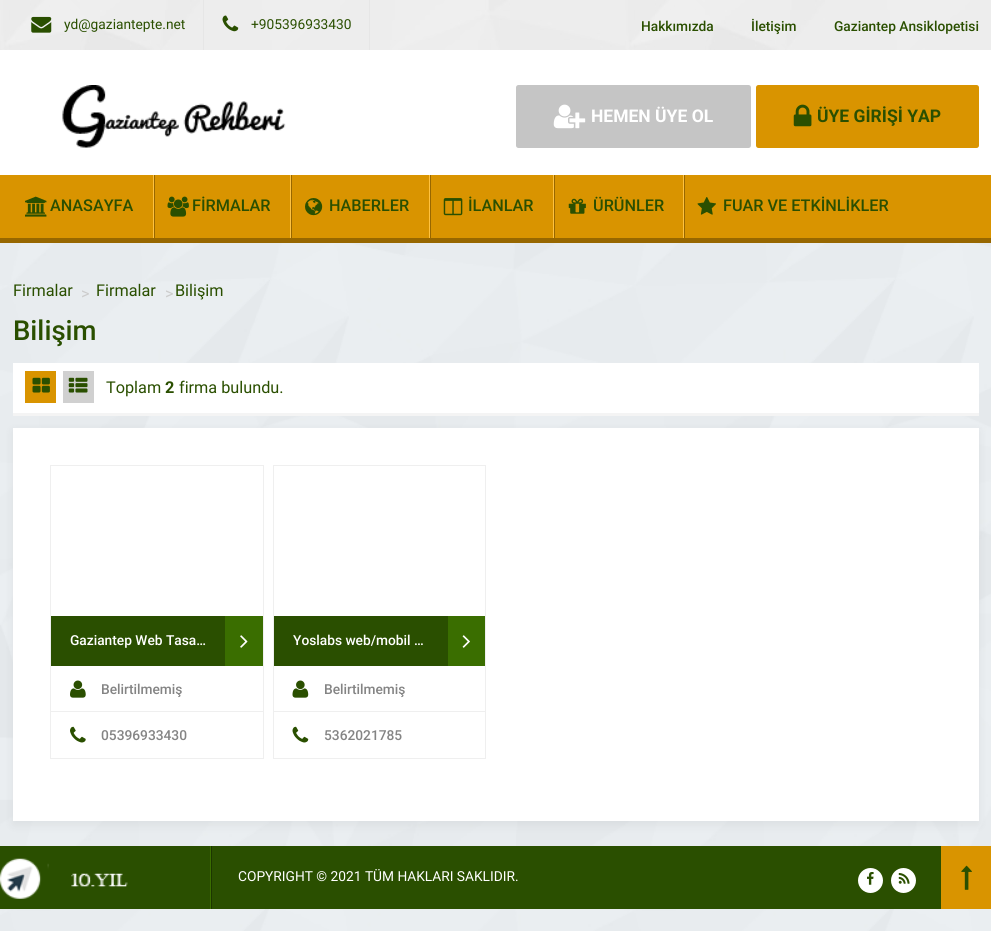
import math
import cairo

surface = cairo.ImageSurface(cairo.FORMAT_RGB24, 991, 931)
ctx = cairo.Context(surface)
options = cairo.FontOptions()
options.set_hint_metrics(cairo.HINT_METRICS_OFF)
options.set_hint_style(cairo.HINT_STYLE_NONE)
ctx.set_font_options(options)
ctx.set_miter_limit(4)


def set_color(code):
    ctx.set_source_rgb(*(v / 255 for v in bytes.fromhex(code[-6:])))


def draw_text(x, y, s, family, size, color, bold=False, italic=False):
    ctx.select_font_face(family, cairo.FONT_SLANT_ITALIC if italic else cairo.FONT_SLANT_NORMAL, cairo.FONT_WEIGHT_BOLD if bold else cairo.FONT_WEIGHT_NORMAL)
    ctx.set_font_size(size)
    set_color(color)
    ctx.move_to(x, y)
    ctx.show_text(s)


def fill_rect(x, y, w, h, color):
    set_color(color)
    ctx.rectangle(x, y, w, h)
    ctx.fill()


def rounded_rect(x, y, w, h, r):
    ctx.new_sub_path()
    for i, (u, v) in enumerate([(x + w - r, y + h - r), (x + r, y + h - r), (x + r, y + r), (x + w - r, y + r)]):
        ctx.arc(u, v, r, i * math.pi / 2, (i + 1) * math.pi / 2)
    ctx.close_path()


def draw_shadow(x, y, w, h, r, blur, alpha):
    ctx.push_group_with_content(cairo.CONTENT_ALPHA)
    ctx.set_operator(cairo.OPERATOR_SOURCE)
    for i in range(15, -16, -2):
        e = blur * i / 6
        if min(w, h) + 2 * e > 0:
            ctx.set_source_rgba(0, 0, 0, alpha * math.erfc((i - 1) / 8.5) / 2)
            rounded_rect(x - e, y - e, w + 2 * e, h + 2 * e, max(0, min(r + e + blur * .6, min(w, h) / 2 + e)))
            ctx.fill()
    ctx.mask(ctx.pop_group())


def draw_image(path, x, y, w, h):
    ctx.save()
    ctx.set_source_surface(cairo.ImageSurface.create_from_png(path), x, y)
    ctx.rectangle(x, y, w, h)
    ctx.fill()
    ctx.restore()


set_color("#ffffff")
ctx.paint()
draw_image("assets/img1.png", 0, 243, 991, 688)
draw_image("assets/img2.png", 0, 0, 991, 50)
fill_rect(203, 0, 1, 50, "#e6e6e6")
draw_image("assets/img3.png", 31, 16, 21, 17)
draw_text(64, 29, "yd@gaziantepte.net", "Roboto", 13.75, "#2a4f00")
fill_rect(369, 0, 1, 50, "#e6e6e6")
draw_image("assets/img4.png", 222, 15, 17, 17)
draw_text(251, 29, "+905396933430", "Roboto", 13.75, "#2a4f00")
draw_text(641, 31, "Hakkımızda", "Roboto Medium", 13.75, "#2a4f00")
draw_text(751, 31, "İletişim", "Roboto Medium", 13.75, "#2a4f00")
draw_text(834, 31, "Gaziantep Ansiklopetisi", "Roboto Medium", 13.75, "#2a4f00")
draw_image("assets/img5.png", 62, 85, 224, 63)
set_color("#c5c5c5")
rounded_rect(516, 85, 235, 63, 2.5)
ctx.fill()
draw_image("assets/img6.png", 553, 104, 33, 25)
draw_text(591, 122, "HEMEN ÜYE OL", "Roboto", 17.5, "#ffffff", bold=True)
set_color("#d99400")
rounded_rect(756, 85, 223, 63, 2.5)
ctx.fill()
draw_image("assets/img7.png", 793, 104, 19, 23)
draw_text(817, 122, "ÜYE GİRİŞİ YAP", "Roboto", 17.5, "#2a4f00", bold=True)
fill_rect(0, 175, 991, 63, "#d99400")
fill_rect(0, 238, 991, 5, "#976700")
fill_rect(153, 175, 1, 63, "#ffc240")
draw_image("assets/img8.png", 25, 196, 22, 21)
draw_text(50, 211, "ANASAYFA", "Roboto Medium", 16.25, "#2a4f00")
fill_rect(290, 175, 1, 63, "#ffc240")
fill_rect(154, 175, 1, 63, "#976700")
draw_image("assets/img9.png", 167, 196, 22, 21)
draw_text(192, 211, "FİRMALAR", "Roboto Medium", 16.25, "#2a4f00")
fill_rect(429, 175, 1, 63, "#ffc240")
fill_rect(291, 175, 1, 63, "#976700")
draw_image("assets/img10.png", 305, 198, 18, 18)
draw_text(329, 211, "HABERLER", "Roboto Medium", 16.25, "#2a4f00")
fill_rect(553, 175, 1, 63, "#ffc240")
fill_rect(430, 175, 1, 63, "#976700")
draw_image("assets/img11.png", 443, 198, 20, 18)
draw_text(468, 211, "İLANLAR", "Roboto Medium", 16.25, "#2a4f00")
fill_rect(683, 175, 1, 63, "#ffc240")
fill_rect(554, 175, 1, 63, "#976700")
draw_image("assets/img12.png", 568, 198, 18, 16)
draw_text(593, 211, "ÜRÜNLER", "Roboto Medium", 16.25, "#2a4f00")
fill_rect(684, 175, 1, 63, "#976700")
draw_image("assets/img13.png", 697, 197, 19, 18)
draw_text(723, 211, "FUAR VE ETKİNLİKLER", "Roboto Medium", 16.25, "#2a4f00")
draw_text(13, 296, "Firmalar", "Roboto", 16.25, "#2a4f00")
draw_text(81, 299, ">", "Roboto", 16.25, "#cccccc")
draw_text(96, 296, "Firmalar", "Roboto", 16.25, "#2a4f00")
draw_text(165, 299, ">", "Roboto", 16.25, "#cccccc")
draw_text(175, 296, "Bilişim", "Roboto", 16.25, "#2a4f00")
draw_text(13, 340, "Bilişim", "Roboto Medium", 27.5, "#2a4f00")
fill_rect(13, 363, 966, 50, "#ffffff")
fill_rect(13, 413, 966, 3, "#f4f4f4")
fill_rect(25, 371, 31, 32, "#d99400")
draw_image("assets/img14.png", 32, 377, 18, 16)
fill_rect(63, 371, 31, 32, "#d0d0d0")
draw_image("assets/img15.png", 68, 377, 20, 16)
draw_text(106, 393, "Toplam", "Roboto", 16.25, "#2a4f00")
draw_text(165, 393, "2", "Roboto", 16.25, "#2a4f00", bold=True)
draw_text(179, 393, "firma bulundu.", "Roboto", 16.25, "#2a4f00")
set_color("#000000")
draw_shadow(13, 431, 966, 394, 0, 5, 0.06)
fill_rect(13, 428, 966, 393, "#ffffff")
ctx.rectangle(50.5, 465.5, 213, 293)
set_color("#efefef")
ctx.set_line_width(1)
ctx.stroke()
fill_rect(51, 616, 174, 50, "#2a4f00")
draw_text(70, 645, "Gaziantep Web Tasa…", "Roboto Medium", 13.75, "#ffffff")
fill_rect(225, 616, 38, 50, "#3a6e00")
draw_image("assets/img16.png", 240, 635, 8, 13)
fill_rect(51, 711, 212, 1, "#efefef")
draw_image("assets/img17.png", 70, 680, 16, 18)
draw_text(101, 694, "Belirtilmemiş", "Roboto Medium", 13.75, "#848484")
draw_image("assets/img18.png", 70, 726, 16, 17)
draw_text(101, 740, "05396933430", "Roboto Medium", 13.75, "#848484")
ctx.rectangle(273.5, 465.5, 212, 293)
set_color("#efefef")
ctx.stroke()
fill_rect(274, 616, 174, 50, "#2a4f00")
draw_text(293, 645, "Yoslabs web/mobil …", "Roboto Medium", 13.75, "#ffffff")
fill_rect(448, 616, 37, 50, "#3a6e00")
draw_image("assets/img19.png", 462, 635, 8, 13)
fill_rect(274, 711, 211, 1, "#efefef")
draw_image("assets/img20.png", 292, 680, 17, 18)
draw_text(324, 694, "Belirtilmemiş", "Roboto Medium", 13.75, "#848484")
draw_image("assets/img21.png", 292, 726, 17, 17)
draw_text(324, 740, "5362021785", "Roboto Medium", 13.75, "#848484")
fill_rect(0, 846, 941, 63, "#2a4f00")
fill_rect(210, 846, 1, 63, "#3a6e00")
draw_image("assets/img22.png", 0, 858, 128, 41)
fill_rect(211, 846, 1, 63, "#1c3600")
draw_text(238, 881, "COPYRIGHT © 2021 TÜM HAKLARI SAKLIDIR.", "Roboto", 13.75, "#ffffff")
ctx.new_path()
ctx.arc(870.5, 880.5, 12.5, 0, 2 * math.pi)
ctx.fill()
draw_image("assets/img23.png", 867, 872, 7, 13)
ctx.arc(903.5, 880.5, 12.5, 0, 2 * math.pi)
ctx.fill()
draw_image("assets/img24.png", 898, 873, 12, 11)
fill_rect(941, 846, 50, 63, "#d99400")
draw_image("assets/img25.png", 961, 865, 11, 25)
surface.write_to_png("output.png")
